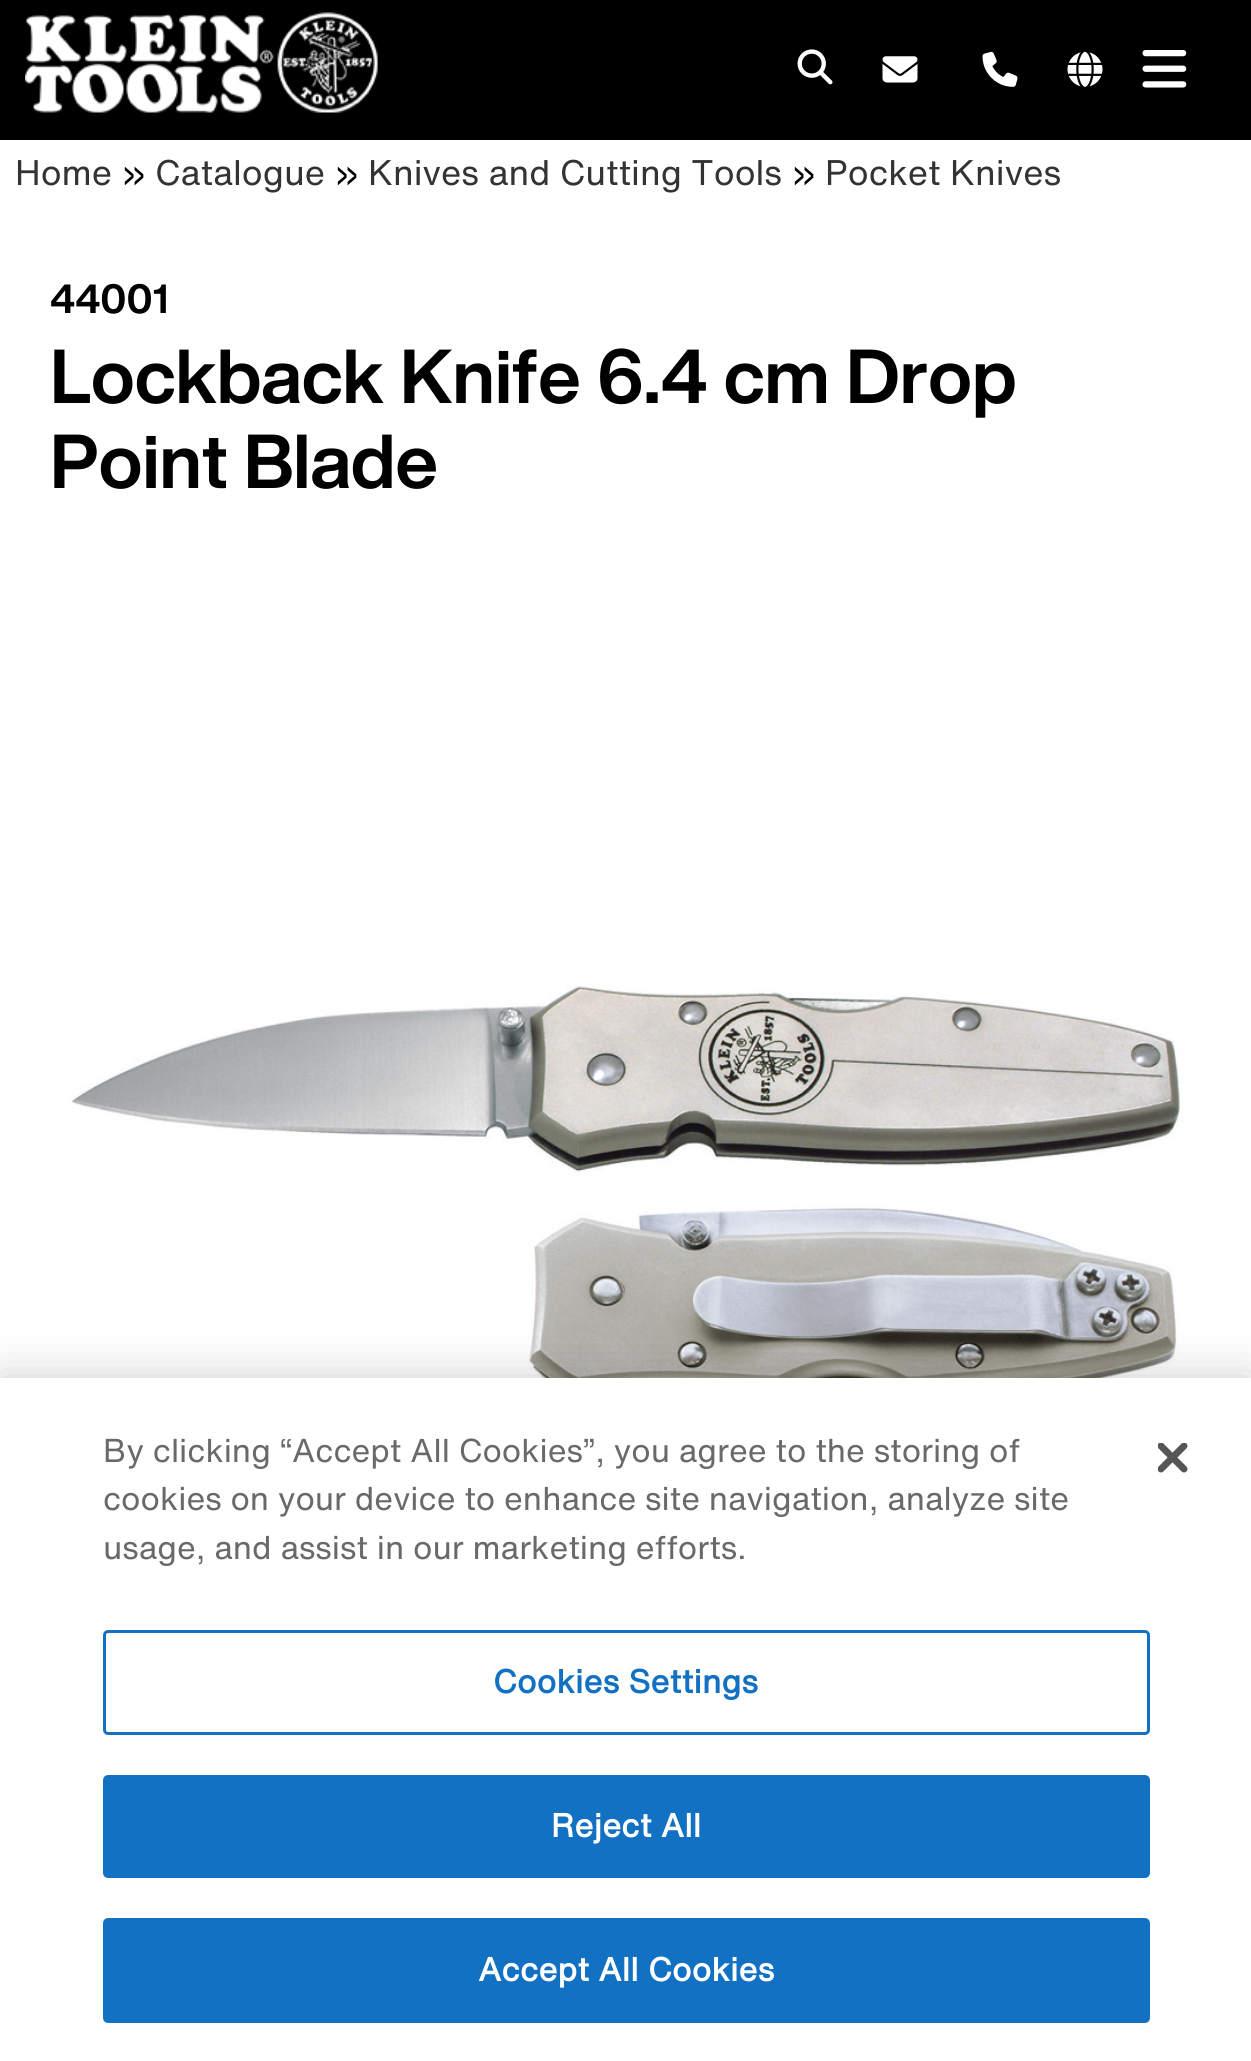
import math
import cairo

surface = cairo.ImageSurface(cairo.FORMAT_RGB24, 1251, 2061)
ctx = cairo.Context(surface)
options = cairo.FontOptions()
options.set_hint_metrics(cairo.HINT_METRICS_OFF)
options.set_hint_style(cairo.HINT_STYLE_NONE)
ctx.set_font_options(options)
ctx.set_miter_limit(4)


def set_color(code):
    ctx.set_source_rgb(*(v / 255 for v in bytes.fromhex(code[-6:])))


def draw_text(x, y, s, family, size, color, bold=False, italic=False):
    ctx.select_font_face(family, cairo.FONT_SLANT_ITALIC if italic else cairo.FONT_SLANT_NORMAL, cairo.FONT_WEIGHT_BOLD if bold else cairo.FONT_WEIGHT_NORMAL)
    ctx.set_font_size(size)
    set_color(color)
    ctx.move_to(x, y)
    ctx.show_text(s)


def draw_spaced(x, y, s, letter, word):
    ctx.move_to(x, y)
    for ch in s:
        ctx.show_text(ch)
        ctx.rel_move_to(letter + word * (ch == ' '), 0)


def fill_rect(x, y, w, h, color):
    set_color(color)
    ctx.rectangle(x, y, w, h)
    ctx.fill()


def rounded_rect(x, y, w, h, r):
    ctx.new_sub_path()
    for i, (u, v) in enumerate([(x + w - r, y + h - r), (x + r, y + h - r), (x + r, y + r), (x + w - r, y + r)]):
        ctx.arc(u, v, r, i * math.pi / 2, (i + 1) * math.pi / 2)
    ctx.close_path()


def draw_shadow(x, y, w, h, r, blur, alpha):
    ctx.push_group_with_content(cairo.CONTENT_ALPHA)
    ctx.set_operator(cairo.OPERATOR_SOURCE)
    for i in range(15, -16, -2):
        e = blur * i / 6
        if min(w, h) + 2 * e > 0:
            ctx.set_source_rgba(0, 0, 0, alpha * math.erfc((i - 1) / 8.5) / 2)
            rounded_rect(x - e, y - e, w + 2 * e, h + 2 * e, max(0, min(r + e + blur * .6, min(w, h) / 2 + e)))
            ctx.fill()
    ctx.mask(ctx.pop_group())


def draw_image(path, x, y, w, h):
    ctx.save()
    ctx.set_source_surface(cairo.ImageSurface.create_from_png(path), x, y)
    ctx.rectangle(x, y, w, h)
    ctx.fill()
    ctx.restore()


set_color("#ffffff")
ctx.paint()
fill_rect(0, 0, 1251, 140, "#000000")
draw_image("assets/img1.png", 25, 12, 353, 101)
draw_image("assets/img2.png", 797, 49, 36, 36)
draw_image("assets/img3.png", 882, 56, 36, 27)
draw_image("assets/img4.png", 982, 51, 36, 36)
draw_image("assets/img5.png", 1067, 51, 36, 36)
draw_image("assets/img6.png", 1142, 50, 45, 38)
draw_text(15, 185, "Home", "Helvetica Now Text", 35, "#333333")
draw_text(122, 185, "»", "Helvetica Now Text", 35, "#000000")
draw_text(155, 185, "Catalogue", "Helvetica Now Text", 35, "#333333")
draw_text(335, 185, "»", "Helvetica Now Text", 35, "#000000")
draw_text(368, 185, "Knives and Cutting Tools", "Helvetica Now Text", 35, "#333333")
draw_text(792, 185, "»", "Helvetica Now Text", 35, "#000000")
draw_text(825, 185, "Pocket Knives", "Helvetica Now Text", 35, "#333333")
draw_text(50, 313, "44001", "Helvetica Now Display", 40, "#000000", bold=True)
draw_text(50, 403, "Lockback Knife 6.4 cm Drop", "Helvetica Now Display", 75, "#000000", bold=True)
draw_text(50, 488, "Point Blade", "Helvetica Now Display", 75, "#000000", bold=True)
draw_image("assets/img7.png", 71, 986, 1113, 392)
set_color("#000000")
draw_shadow(0, 1378, 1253, 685, 0, 22.5, 0.2)
fill_rect(0, 1378, 1251, 683, "#ffffff")
draw_text(103, 1462, "By clicking “Accept All Cookies”, you agree to the storing of", "Helvetica Now Text", 32.5, "#696969")
draw_text(103, 1510, "cookies on your device to enhance site navigation, analyze site", "Helvetica Now Text", 32.5, "#696969")
draw_text(103, 1559, "usage, and assist in our marketing efforts.", "Helvetica Now Text", 32.5, "#696969")
rounded_rect(104.5, 1631.5, 1044, 102, 3.5)
set_color("#1371c3")
ctx.set_line_width(3)
ctx.stroke()
ctx.select_font_face("Helvetica Now Text", cairo.FONT_SLANT_NORMAL, cairo.FONT_WEIGHT_BOLD)
draw_spaced(493, 1693, "Cookies Settings", 0.3, 0)
rounded_rect(104.5, 1776.5, 1044, 100, 3.5)
ctx.fill_preserve()
ctx.stroke()
set_color("#ffffff")
draw_spaced(551, 1837, "Reject All", 0.3, 0)
set_color("#1371c3")
rounded_rect(104.5, 1919.5, 1044, 102, 3.5)
ctx.fill_preserve()
ctx.stroke()
set_color("#ffffff")
draw_spaced(478, 1981, "Accept All Cookies", 0.3, 0)
draw_image("assets/img8.png", 1158, 1443, 30, 30)
surface.write_to_png("output.png")
